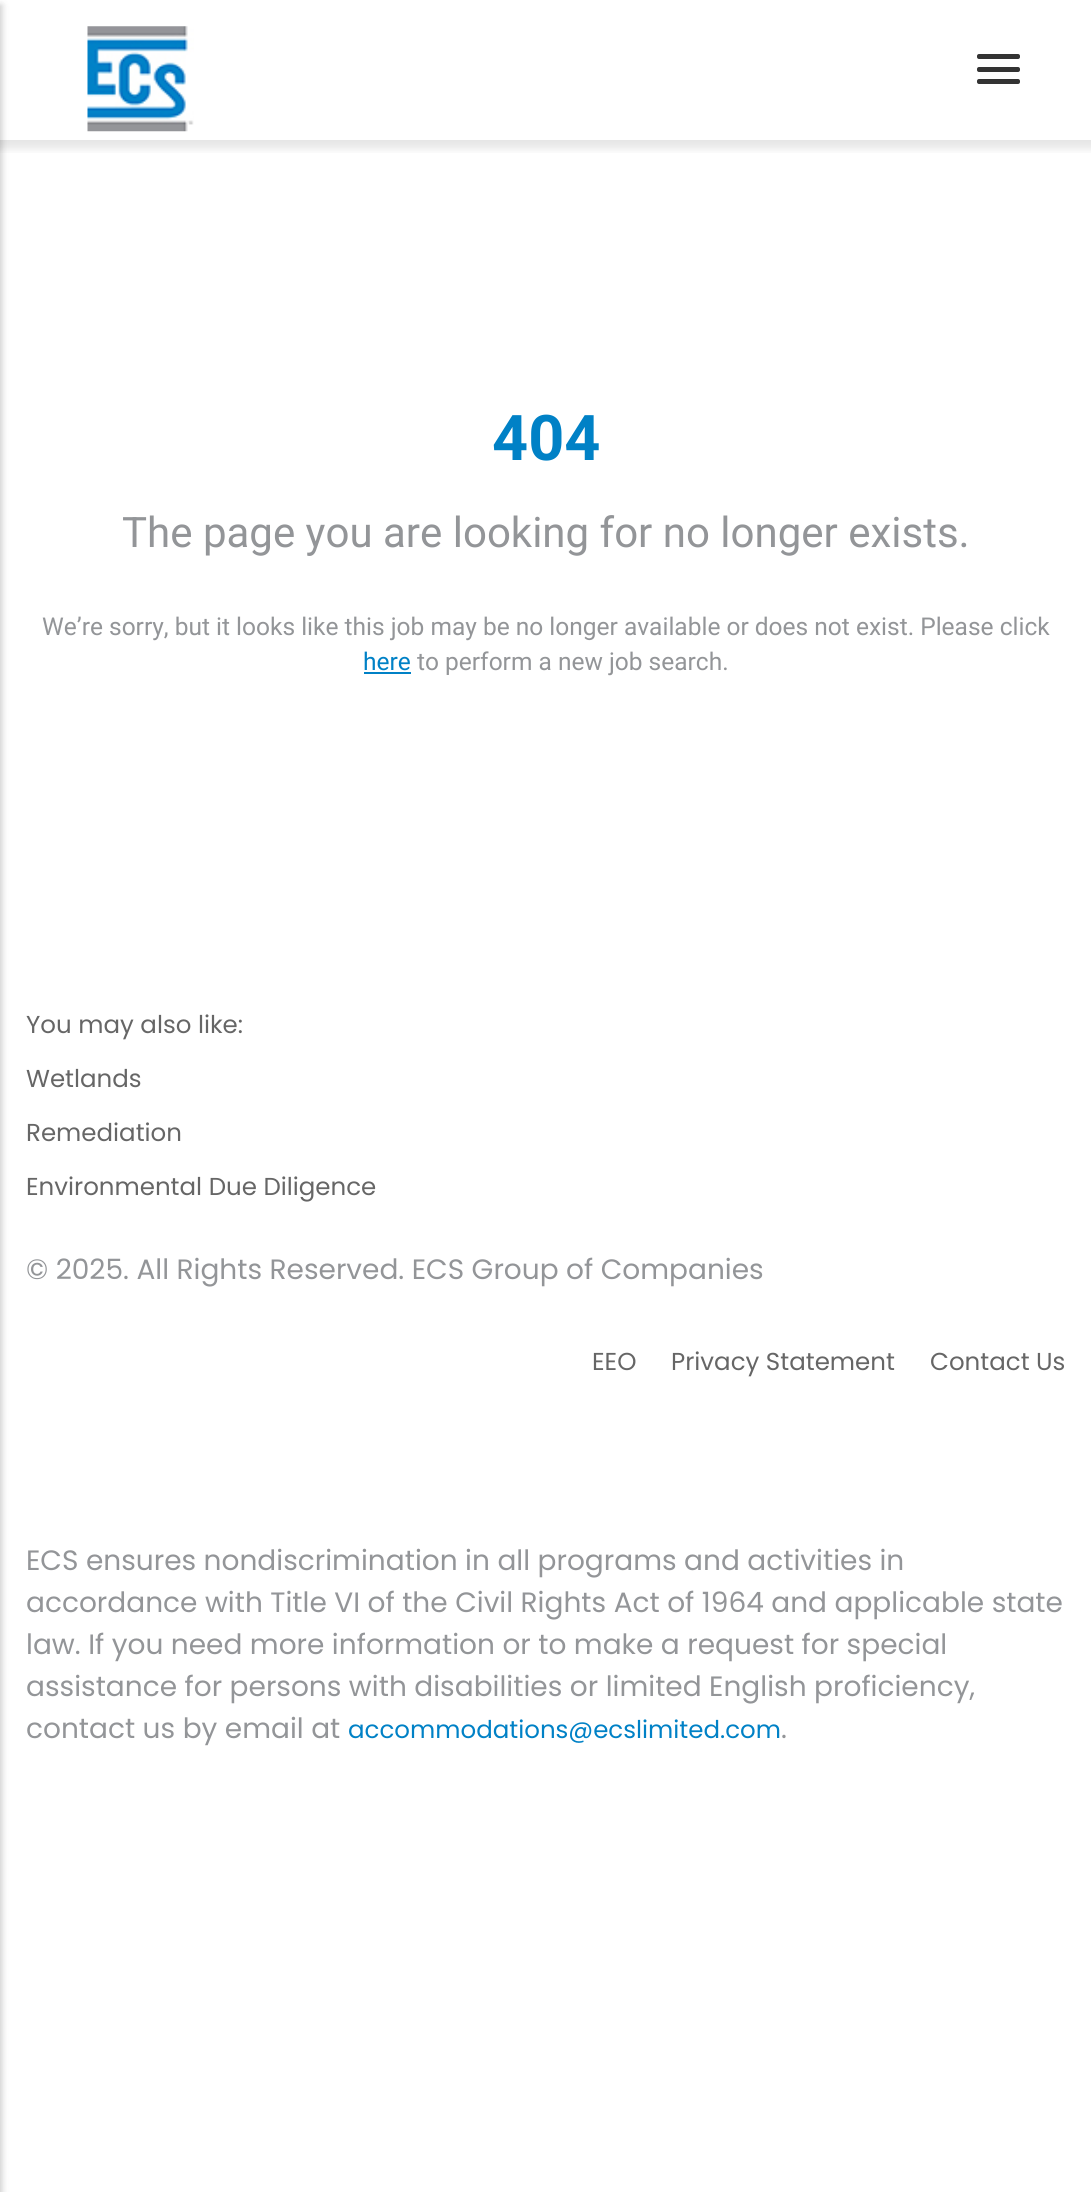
import math
import cairo

surface = cairo.ImageSurface(cairo.FORMAT_RGB24, 1091, 2192)
ctx = cairo.Context(surface)
options = cairo.FontOptions()
options.set_hint_metrics(cairo.HINT_METRICS_OFF)
options.set_hint_style(cairo.HINT_STYLE_NONE)
ctx.set_font_options(options)
ctx.set_miter_limit(4)


def set_color(code):
    ctx.set_source_rgb(*(v / 255 for v in bytes.fromhex(code[-6:])))


def draw_text(x, y, s, family, size, color, bold=False, italic=False):
    ctx.select_font_face(family, cairo.FONT_SLANT_ITALIC if italic else cairo.FONT_SLANT_NORMAL, cairo.FONT_WEIGHT_BOLD if bold else cairo.FONT_WEIGHT_NORMAL)
    ctx.set_font_size(size)
    set_color(color)
    ctx.move_to(x, y)
    ctx.show_text(s)


def fill_rect(x, y, w, h, color):
    set_color(color)
    ctx.rectangle(x, y, w, h)
    ctx.fill()


def rounded_rect(x, y, w, h, r):
    ctx.new_sub_path()
    for i, (u, v) in enumerate([(x + w - r, y + h - r), (x + r, y + h - r), (x + r, y + r), (x + w - r, y + r)]):
        ctx.arc(u, v, r, i * math.pi / 2, (i + 1) * math.pi / 2)
    ctx.close_path()


def draw_shadow(x, y, w, h, r, blur, alpha):
    ctx.push_group_with_content(cairo.CONTENT_ALPHA)
    ctx.set_operator(cairo.OPERATOR_SOURCE)
    for i in range(15, -16, -2):
        e = blur * i / 6
        if min(w, h) + 2 * e > 0:
            ctx.set_source_rgba(0, 0, 0, alpha * math.erfc((i - 1) / 8.5) / 2)
            rounded_rect(x - e, y - e, w + 2 * e, h + 2 * e, max(0, min(r + e + blur * .6, min(w, h) / 2 + e)))
            ctx.fill()
    ctx.mask(ctx.pop_group())


def draw_image(path, x, y, w, h):
    ctx.save()
    ctx.set_source_surface(cairo.ImageSurface.create_from_png(path), x, y)
    ctx.rectangle(x, y, w, h)
    ctx.fill()
    ctx.restore()


set_color("#ffffff")
ctx.paint()
ctx.save()
ctx.rectangle(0, 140, 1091, 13)
ctx.clip()
set_color("#000000")
draw_shadow(-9, -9, 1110, 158, 0, 4.5, 0.1)
ctx.restore()
set_color("#000000")
draw_shadow(-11, 5, 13, 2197, 0, 3.5, 0.2)
draw_image("assets/img1.png", 87, 26, 107, 106)
set_color("#333333")
rounded_rect(977, 54, 43, 5, 2)
ctx.fill()
rounded_rect(977, 67, 43, 5, 2)
ctx.fill()
rounded_rect(977, 79, 43, 5, 2)
ctx.fill()
draw_text(492, 460, "404", "Roboto", 63, "#0081c6", bold=True)
draw_text(122, 547, "The page you are looking for no longer exists.", "Roboto", 42, "#939598")
draw_text(42, 635, "We’re sorry, but it looks like this job may be no longer available or does not exist. Please click", "Roboto", 24.5, "#939598")
draw_text(363, 670, "here", "Roboto", 24.5, "#0081c6")
fill_rect(364, 672, 47, 2, "#0081c6")
draw_text(417, 670, "to perform a new job search.", "Roboto", 24.5, "#939598")
draw_text(26, 1033, "You may also like:", "Poppins", 24.5, "#666666")
draw_text(26, 1087, "Wetlands", "Poppins", 24.5, "#666666")
draw_text(26, 1141, "Remediation", "Poppins", 24.5, "#666666")
draw_text(26, 1195, "Environmental Due Diligence", "Poppins", 24.5, "#666666")
draw_text(26, 1279, "© 2025. All Rights Reserved. ECS Group of Companies", "Poppins", 28, "#939598")
draw_text(592, 1370, "EEO", "Poppins", 24.5, "#666666")
draw_text(671, 1370, "Privacy Statement", "Poppins", 24.5, "#666666")
draw_text(930, 1370, "Contact Us", "Poppins", 24.5, "#666666")
draw_text(26, 1570, "ECS ensures nondiscrimination in all programs and activities in", "Poppins", 28, "#939598")
draw_text(26, 1612, "accordance with Title VI of the Civil Rights Act of 1964 and applicable state", "Poppins", 28, "#939598")
draw_text(26, 1654, "law. If you need more information or to make a request for special", "Poppins", 28, "#939598")
draw_text(26, 1696, "assistance for persons with disabilities or limited English proficiency,", "Poppins", 28, "#939598")
draw_text(26, 1738, "contact us by email at", "Poppins", 28, "#939598")
draw_text(348, 1738, "accommodations@ecslimited.com", "Poppins", 24.5, "#0081c6")
draw_text(781, 1738, ".", "Poppins", 28, "#939598")
surface.write_to_png("output.png")
